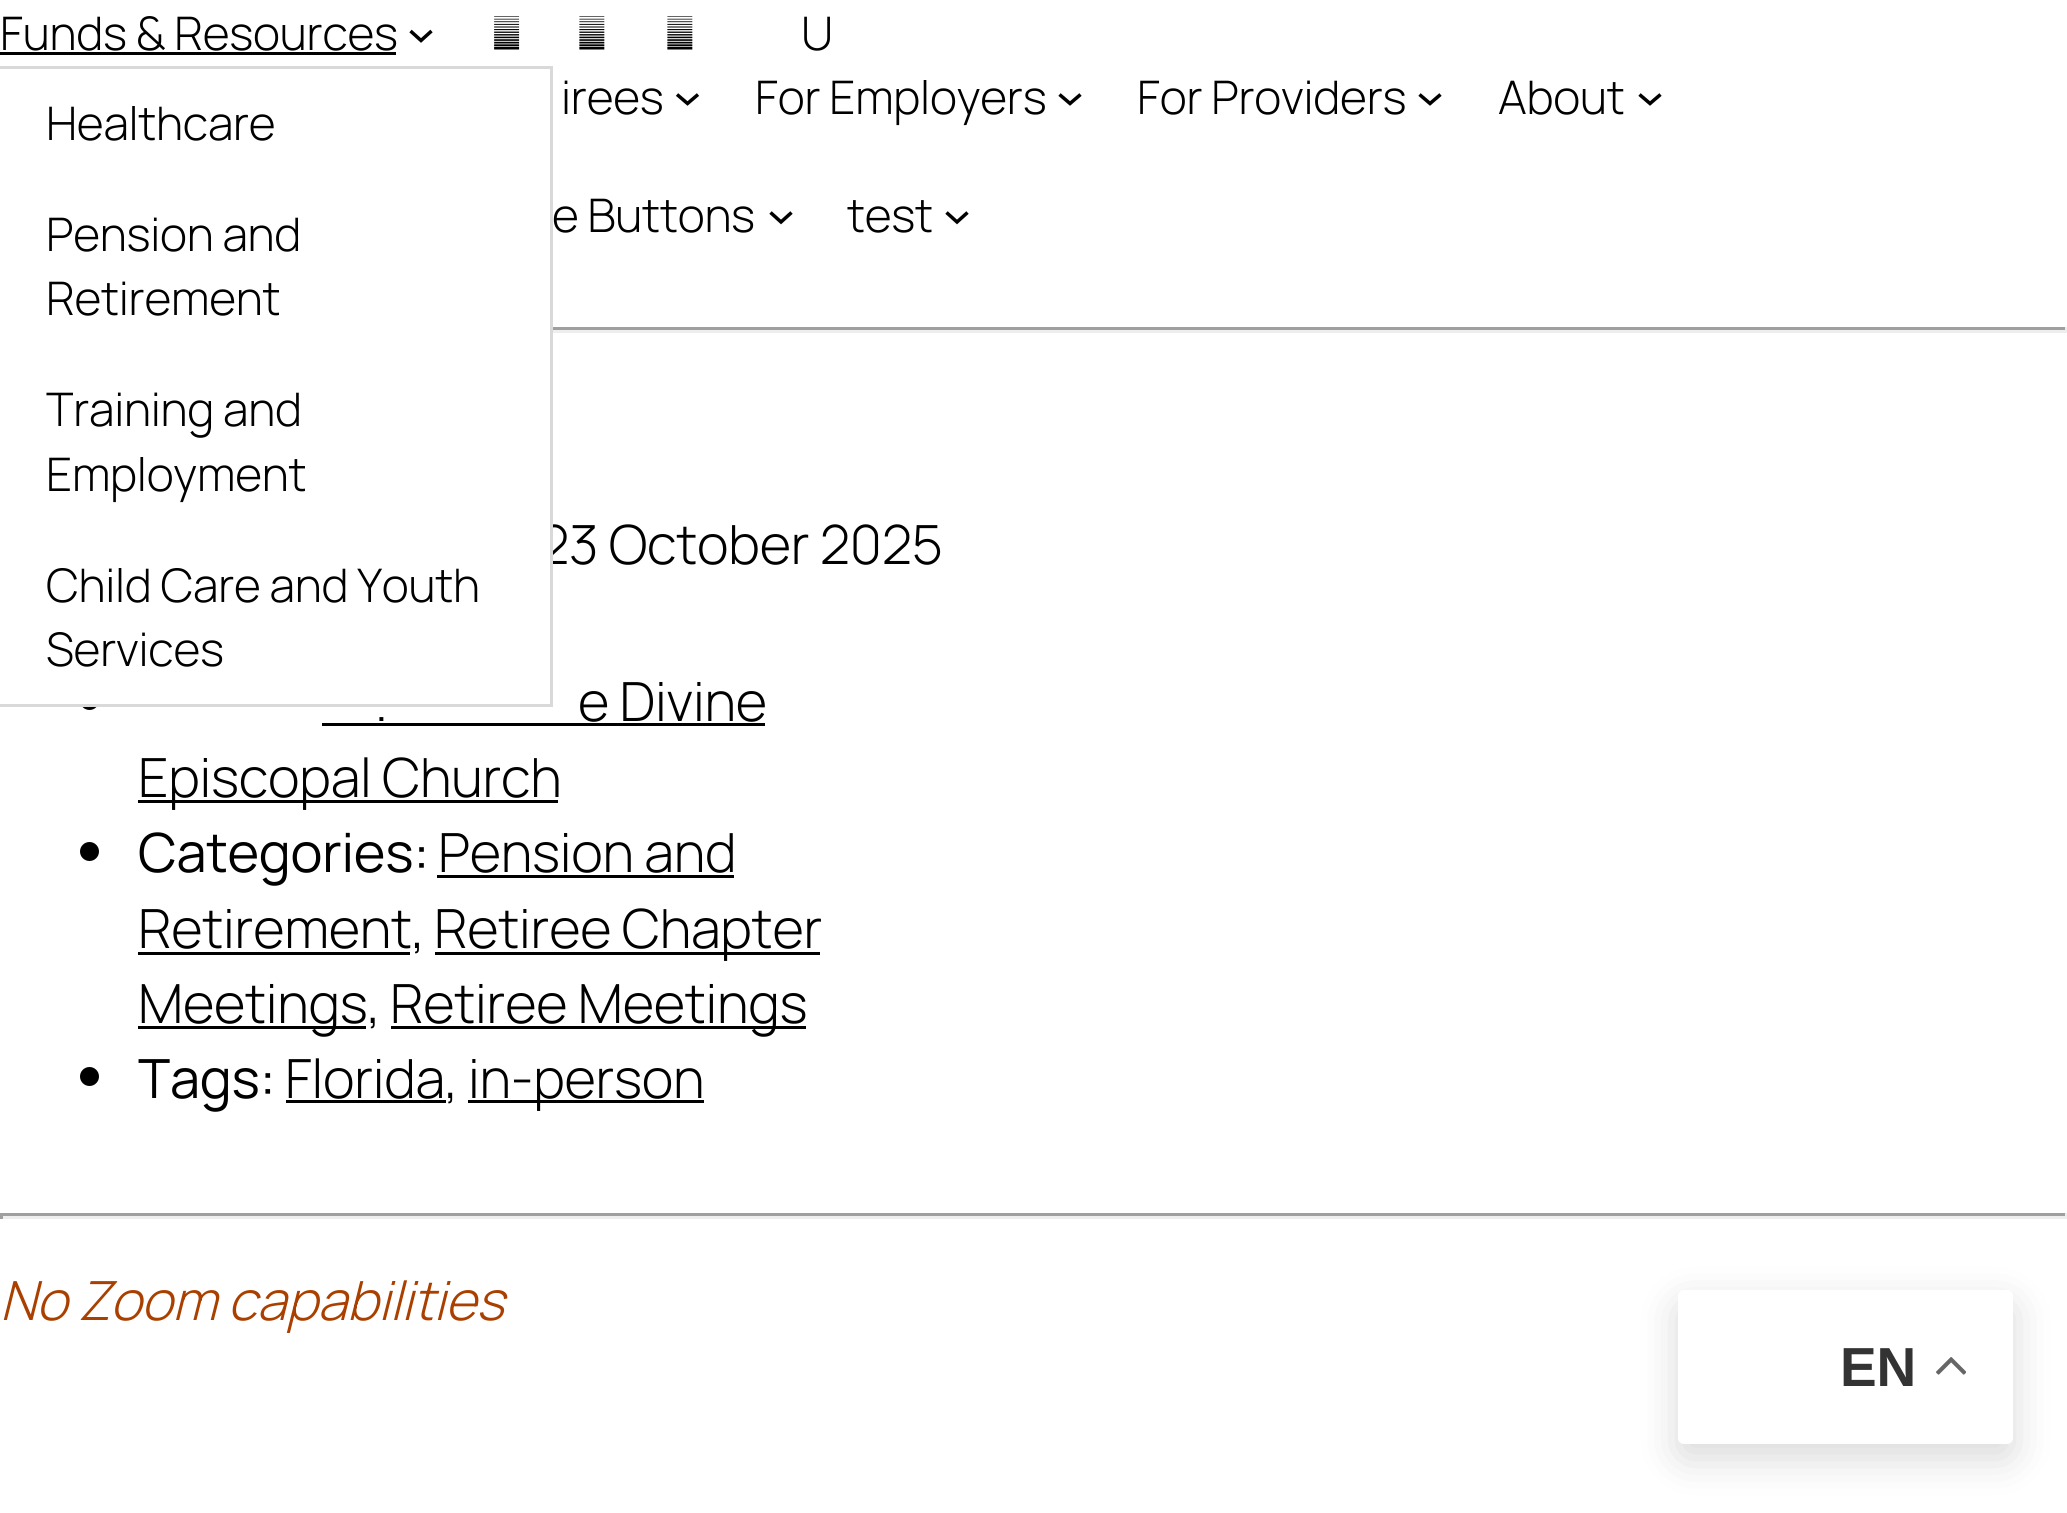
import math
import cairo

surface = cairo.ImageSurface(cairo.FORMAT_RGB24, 2067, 1513)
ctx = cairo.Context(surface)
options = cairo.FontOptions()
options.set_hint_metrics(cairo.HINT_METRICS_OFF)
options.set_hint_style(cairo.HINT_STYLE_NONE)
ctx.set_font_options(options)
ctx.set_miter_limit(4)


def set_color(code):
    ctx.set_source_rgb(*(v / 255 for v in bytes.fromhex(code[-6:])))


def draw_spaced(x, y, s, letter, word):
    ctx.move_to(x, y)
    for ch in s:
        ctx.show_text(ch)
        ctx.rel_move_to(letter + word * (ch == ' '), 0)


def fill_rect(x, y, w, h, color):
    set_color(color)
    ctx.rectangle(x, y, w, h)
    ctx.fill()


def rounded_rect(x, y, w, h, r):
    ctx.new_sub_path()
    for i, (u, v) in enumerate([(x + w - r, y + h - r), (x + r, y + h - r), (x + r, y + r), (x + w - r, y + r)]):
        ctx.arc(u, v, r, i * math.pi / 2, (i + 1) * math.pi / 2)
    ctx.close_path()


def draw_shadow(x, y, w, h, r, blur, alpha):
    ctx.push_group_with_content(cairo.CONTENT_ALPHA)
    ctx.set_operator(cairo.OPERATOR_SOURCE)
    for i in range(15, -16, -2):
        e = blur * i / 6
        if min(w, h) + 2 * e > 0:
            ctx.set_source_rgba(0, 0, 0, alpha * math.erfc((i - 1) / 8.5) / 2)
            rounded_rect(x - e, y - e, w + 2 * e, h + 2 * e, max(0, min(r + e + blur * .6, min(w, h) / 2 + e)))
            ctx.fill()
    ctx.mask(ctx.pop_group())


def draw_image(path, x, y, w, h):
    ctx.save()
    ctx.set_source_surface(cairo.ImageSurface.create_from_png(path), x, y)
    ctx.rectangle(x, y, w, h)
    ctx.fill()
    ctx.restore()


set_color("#ffffff")
ctx.paint()
ctx.select_font_face("Manrope Light")
ctx.set_font_size(46.25)
set_color("#000000")
draw_spaced(0, 50, "Funds & Resources", -0.25, 0)
fill_rect(0, 52, 396, 3, "#000000")
ctx.new_path()
ctx.move_to(410.5, 31)
ctx.line_to(421, 40.5)
ctx.line_to(431.5, 31)
ctx.set_line_width(3.5)
ctx.stroke()
ctx.set_font_size(54)
draw_spaced(539, 564, "23 October 2025", -0.25, 0)
rounded_rect(80, 690, 19, 20, 9.5)
ctx.fill()
fill_rect(80, 525, 470, 179, "#ffffff")
ctx.rectangle(-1.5, 67.5, 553, 638)
set_color("#d9d9d9")
ctx.set_line_width(3)
ctx.stroke()
ctx.set_font_size(46.25)
set_color("#000000")
draw_spaced(46, 140, "Healthcare", -0.25, 0)
draw_spaced(46, 251, "Pension and", -0.25, 0)
draw_spaced(46, 315, "Retirement", -0.25, 0)
draw_spaced(46, 426, "Training and", -0.25, 0)
draw_spaced(46, 491, "Employment", -0.25, 0)
draw_spaced(46, 602, "Child Care and Youth", -0.25, 0)
draw_spaced(46, 666, "Services", -0.25, 0)
draw_image("assets/img1.png", 494, 16, 26, 34)
draw_image("assets/img2.png", 579, 16, 26, 34)
draw_image("assets/img2.png", 667, 16, 26, 34)
draw_spaced(801, 50, "U", -0.25, 0)
draw_spaced(561, 114, "irees", -0.25, 0)
ctx.new_path()
ctx.move_to(677, 94.5)
ctx.line_to(687.5, 103.5)
ctx.line_to(698, 94.5)
ctx.set_line_width(3.5)
ctx.stroke()
draw_spaced(755, 114, "For Employers", -0.25, 0)
ctx.new_path()
ctx.move_to(1059.5, 94.5)
ctx.line_to(1070, 103.5)
ctx.line_to(1080.5, 94.5)
ctx.stroke()
draw_spaced(1137, 114, "For Providers", -0.25, 0)
ctx.new_path()
ctx.move_to(1419.5, 94.5)
ctx.line_to(1430, 103.5)
ctx.line_to(1440.5, 94.5)
ctx.stroke()
draw_spaced(1498, 114, "About", -0.25, 0)
ctx.new_path()
ctx.move_to(1639.5, 94.5)
ctx.line_to(1650, 103.5)
ctx.line_to(1660.5, 94.5)
ctx.stroke()
draw_spaced(552, 232, "e Buttons", -0.25, 0)
ctx.new_path()
ctx.move_to(770.5, 212.5)
ctx.line_to(781, 222)
ctx.line_to(791.5, 212.5)
ctx.stroke()
draw_spaced(847, 232, "test", -0.25, 0)
ctx.new_path()
ctx.move_to(946.5, 212.5)
ctx.line_to(957, 222)
ctx.line_to(967.5, 212.5)
ctx.stroke()
fill_rect(553, 327, 1514, 3, "#9f9f9f")
fill_rect(2065, 327, 2, 6, "#eeeeee")
fill_rect(553, 330, 1514, 3, "#eeeeee")
ctx.set_font_size(54)
set_color("#000000")
draw_spaced(578, 721, "e Divine", -0.25, 0)
draw_spaced(375, 721, ".", -0.25, 0)
fill_rect(322, 723, 443, 3, "#000000")
fill_rect(138, 800, 420, 3, "#000000")
draw_spaced(138, 797, "Episcopal Church", -0.25, 0)
ctx.new_path()
ctx.arc(89.5, 851.5, 9.5, 0, 2 * math.pi)
ctx.fill()
ctx.select_font_face("Manrope")
draw_spaced(138, 872, "Categories:", -0.25, 0)
ctx.select_font_face("Manrope Light")
draw_spaced(438, 872, "Pension and", -0.25, 0)
fill_rect(437, 875, 297, 3, "#000000")
fill_rect(138, 952, 272, 3, "#000000")
draw_spaced(138, 948, "Retirement,", -0.25, 0)
fill_rect(435, 952, 385, 3, "#000000")
draw_spaced(434, 948, "Retiree Chapter", -0.25, 0)
fill_rect(138, 1026, 228, 3, "#000000")
draw_spaced(138, 1023, "Meetings,", -0.25, 0)
fill_rect(391, 1026, 415, 3, "#000000")
draw_spaced(390, 1023, "Retiree Meetings", -0.25, 0)
ctx.new_path()
ctx.arc(89.5, 1076.5, 9.5, 0, 2 * math.pi)
ctx.fill()
ctx.select_font_face("Manrope")
draw_spaced(138, 1098, "Tags:", -0.25, 0)
fill_rect(286, 1100, 160, 3, "#000000")
ctx.select_font_face("Manrope Light")
draw_spaced(285, 1098, "Florida,", -0.25, 0)
fill_rect(468, 1100, 236, 3, "#000000")
draw_spaced(468, 1098, "in-person", -0.25, 0)
fill_rect(0, 1213, 2067, 3, "#9f9f9f")
fill_rect(2065, 1213, 2, 6, "#eeeeee")
fill_rect(0, 1216, 2067, 3, "#eeeeee")
fill_rect(0, 1213, 3, 6, "#9f9f9f")
ctx.select_font_face("Manrope Light", cairo.FONT_SLANT_ITALIC)
set_color("#aa4000")
draw_spaced(0, 1320, "No Zoom capabilities", -0.25, 0)
set_color("#000000")
draw_shadow(1678, 1304, 335, 154, 6, 20.5, 0.15)
set_color("#ffffff")
rounded_rect(1678, 1290, 335, 154, 6)
ctx.fill()
ctx.select_font_face("Liberation Sans", cairo.FONT_SLANT_NORMAL, cairo.FONT_WEIGHT_BOLD)
ctx.set_font_size(55)
set_color("#333333")
draw_spaced(1840, 1386, "EN", -0.25, 0)
draw_image("assets/img3.png", 1936, 1357, 30, 18)
surface.write_to_png("output.png")
